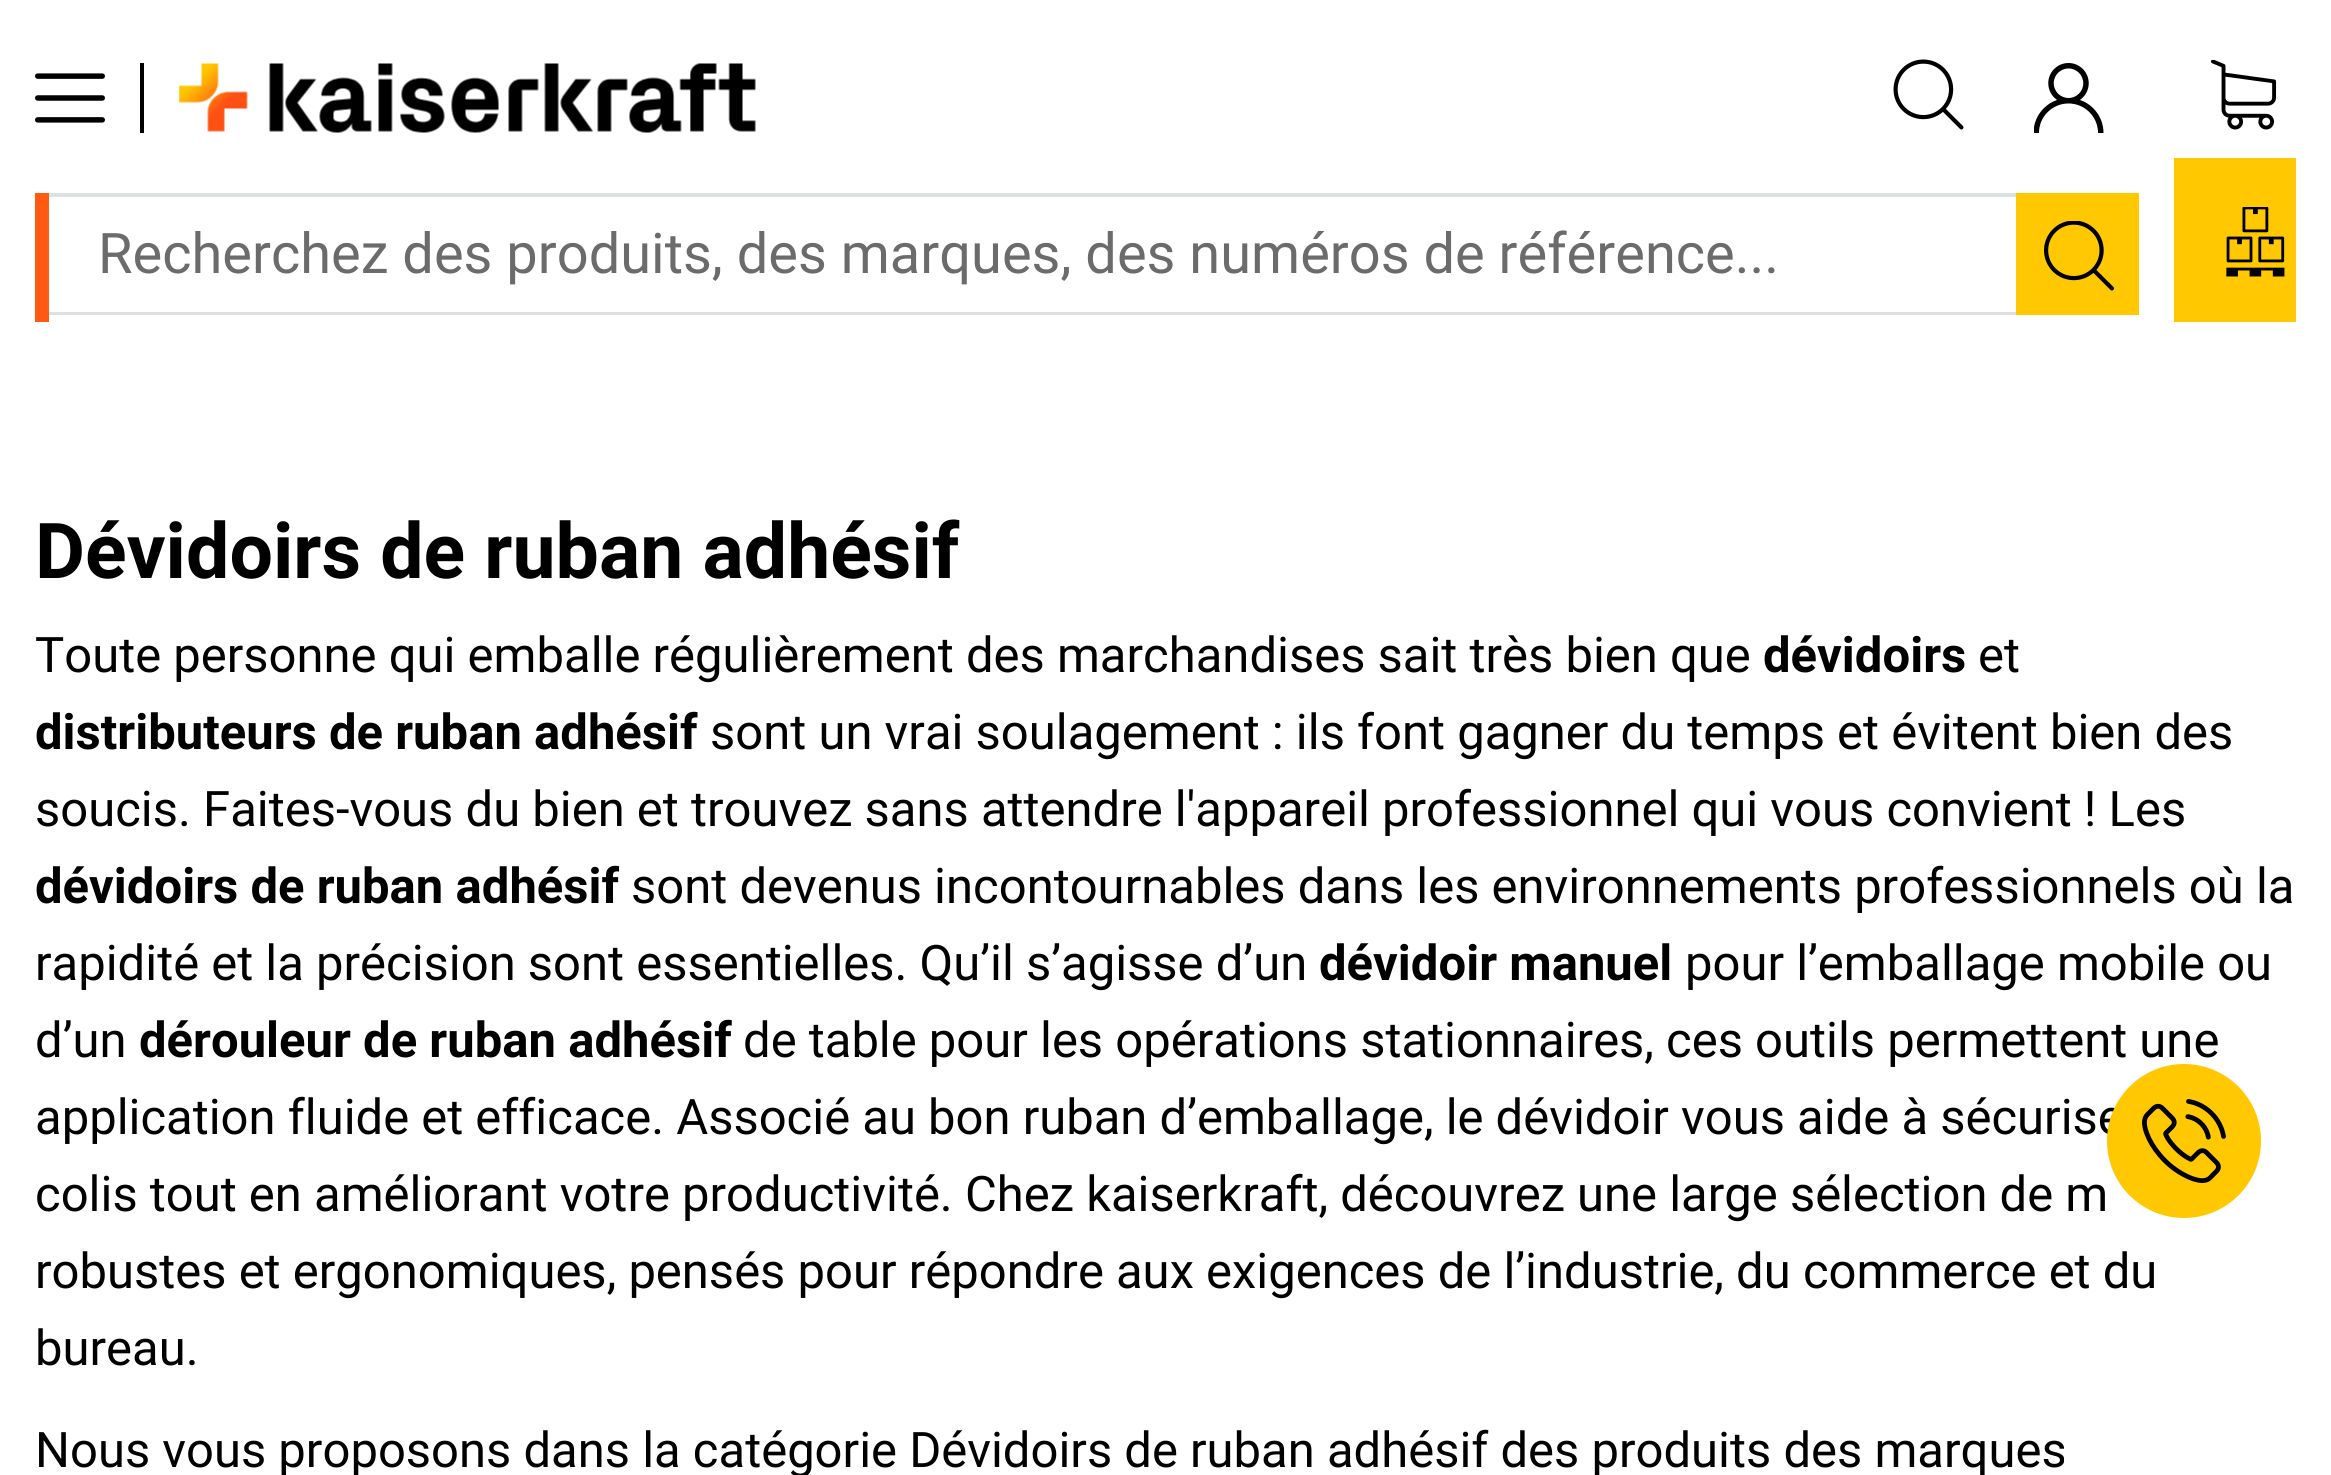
import math
import cairo

surface = cairo.ImageSurface(cairo.FORMAT_RGB24, 2331, 1475)
ctx = cairo.Context(surface)
options = cairo.FontOptions()
options.set_hint_metrics(cairo.HINT_METRICS_OFF)
options.set_hint_style(cairo.HINT_STYLE_NONE)
ctx.set_font_options(options)
ctx.set_miter_limit(4)


def set_color(code):
    ctx.set_source_rgb(*(v / 255 for v in bytes.fromhex(code[-6:])))


def draw_text(x, y, s, family, size, color, bold=False, italic=False):
    ctx.select_font_face(family, cairo.FONT_SLANT_ITALIC if italic else cairo.FONT_SLANT_NORMAL, cairo.FONT_WEIGHT_BOLD if bold else cairo.FONT_WEIGHT_NORMAL)
    ctx.set_font_size(size)
    set_color(color)
    ctx.move_to(x, y)
    ctx.show_text(s)


def fill_rect(x, y, w, h, color):
    set_color(color)
    ctx.rectangle(x, y, w, h)
    ctx.fill()


def draw_image(path, x, y, w, h):
    ctx.save()
    ctx.set_source_surface(cairo.ImageSurface.create_from_png(path), x, y)
    ctx.rectangle(x, y, w, h)
    ctx.fill()
    ctx.restore()


set_color("#ffffff")
ctx.paint()
fill_rect(140, 63, 4, 70, "#000000")
draw_image("assets/img1.png", 35, 73, 70, 50)
draw_image("assets/img2.png", 179, 63, 577, 70)
draw_image("assets/img3.png", 1893, 59, 71, 71)
draw_image("assets/img4.png", 2034, 63, 70, 70)
draw_image("assets/img5.png", 2211, 60, 66, 70)
fill_rect(35, 193, 14, 129, "#ff5a12")
fill_rect(49, 193, 1967, 4, "#dde1e2")
fill_rect(49, 312, 1967, 3, "#dde1e2")
draw_text(98, 273, "Recherchez des produits, des marques, des numéros de référence...", "Roboto", 56, "#6b6b6b")
fill_rect(2016, 193, 123, 122, "#ffc800")
draw_image("assets/img6.png", 2044, 221, 70, 70)
fill_rect(2174, 158, 122, 164, "#ffc800")
draw_image("assets/img7.png", 2226, 207, 59, 70)
draw_text(35, 578, "Dévidoirs de ruban adhésif", "Roboto", 77, "#000000", bold=True)
draw_text(35, 672, "Toute personne qui emballe régulièrement des marchandises sait très bien que", "Roboto", 49, "#000000")
draw_text(1763, 672, "dévidoirs", "Roboto", 49, "#000000", bold=True)
draw_text(1978, 672, "et", "Roboto", 49, "#000000")
draw_text(35, 749, "distributeurs de ruban adhésif", "Roboto", 49, "#000000", bold=True)
draw_text(710, 749, "sont un vrai soulagement : ils font gagner du temps et évitent bien des", "Roboto", 49, "#000000")
draw_text(35, 826, "soucis. Faites-vous du bien et trouvez sans attendre l'appareil professionnel qui vous convient ! Les", "Roboto", 49, "#000000")
draw_text(35, 903, "dévidoirs de ruban adhésif", "Roboto", 49, "#000000", bold=True)
draw_text(631, 903, "sont devenus incontournables dans les environnements professionnels où la", "Roboto", 49, "#000000")
draw_text(35, 980, "rapidité et la précision sont essentielles. Qu’il s’agisse d’un", "Roboto", 49, "#000000")
draw_text(1319, 980, "dévidoir manuel", "Roboto", 49, "#000000", bold=True)
draw_text(1685, 980, "pour l’emballage mobile ou", "Roboto", 49, "#000000")
draw_text(35, 1057, "d’un", "Roboto", 49, "#000000")
draw_text(139, 1057, "dérouleur de ruban adhésif", "Roboto", 49, "#000000", bold=True)
draw_text(743, 1057, "de table pour les opérations stationnaires, ces outils permettent une", "Roboto", 49, "#000000")
draw_text(35, 1134, "application fluide et efficace. Associé au bon ruban d’emballage, le dévidoir vous aide à sécurise", "Roboto", 49, "#000000")
draw_text(35, 1211, "colis tout en améliorant votre productivité. Chez kaiserkraft, découvrez une large sélection de m", "Roboto", 49, "#000000")
draw_text(35, 1288, "robustes et ergonomiques, pensés pour répondre aux exigences de l’industrie, du commerce et du", "Roboto", 49, "#000000")
draw_text(35, 1365, "bureau.", "Roboto", 49, "#000000")
draw_text(35, 1467, "Nous vous proposons dans la catégorie Dévidoirs de ruban adhésif des produits des marques", "Roboto", 49, "#000000")
set_color("#ffc800")
ctx.new_path()
ctx.arc(2184, 1141, 77, 0, 2 * math.pi)
ctx.fill()
draw_image("assets/img8.png", 2142, 1099, 84, 84)
surface.write_to_png("output.png")
